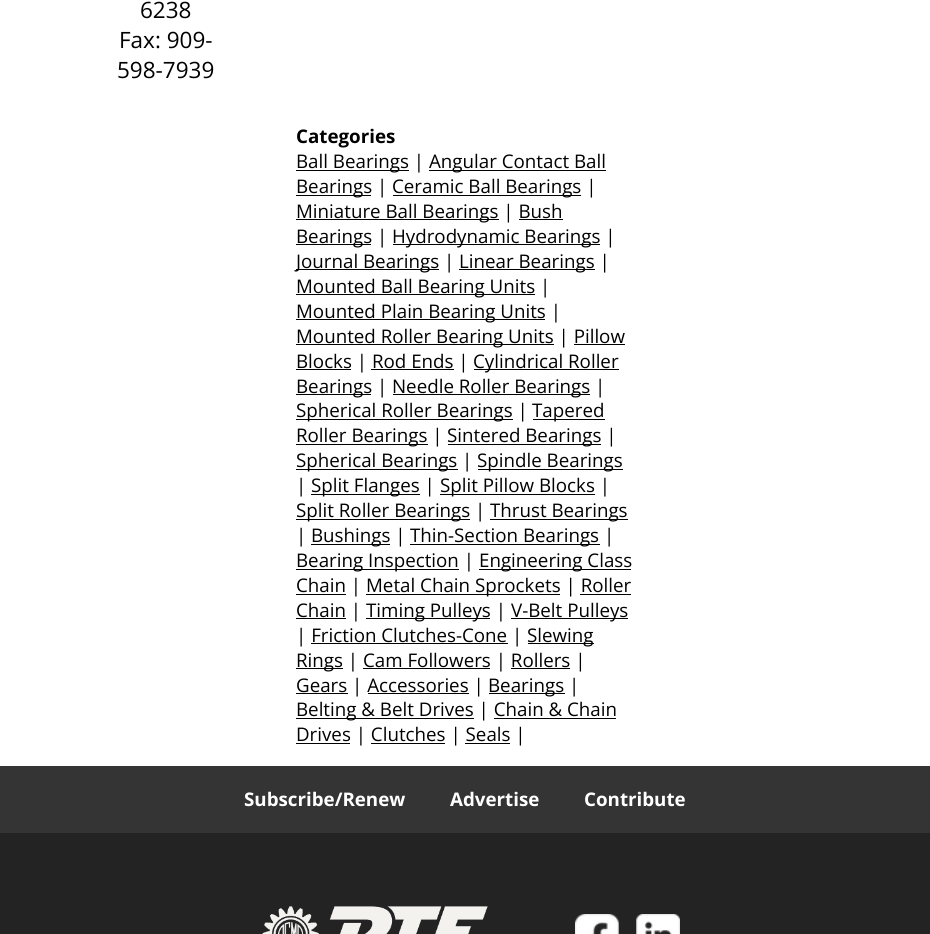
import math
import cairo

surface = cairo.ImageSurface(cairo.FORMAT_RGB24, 930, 934)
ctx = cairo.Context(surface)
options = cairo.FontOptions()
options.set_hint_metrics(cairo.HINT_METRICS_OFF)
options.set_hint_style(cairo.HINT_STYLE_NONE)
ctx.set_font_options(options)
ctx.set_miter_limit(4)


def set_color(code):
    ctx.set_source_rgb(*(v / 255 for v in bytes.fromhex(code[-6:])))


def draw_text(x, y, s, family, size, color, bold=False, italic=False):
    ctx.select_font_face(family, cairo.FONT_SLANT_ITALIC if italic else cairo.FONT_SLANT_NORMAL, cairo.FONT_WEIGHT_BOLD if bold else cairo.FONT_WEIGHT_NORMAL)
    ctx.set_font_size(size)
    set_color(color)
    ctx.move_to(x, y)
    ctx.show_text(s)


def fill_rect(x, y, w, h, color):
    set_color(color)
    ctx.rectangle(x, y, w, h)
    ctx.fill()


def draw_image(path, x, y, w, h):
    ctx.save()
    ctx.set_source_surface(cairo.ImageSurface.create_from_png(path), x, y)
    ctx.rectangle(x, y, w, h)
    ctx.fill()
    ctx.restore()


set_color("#ffffff")
ctx.paint()
draw_text(140, 18, "6238", "Open Sans", 22.5, "#000000")
draw_text(119, 48, "Fax: 909-", "Open Sans", 22.5, "#000000")
draw_text(117, 78, "598-7939", "Open Sans", 22.5, "#000000")
draw_text(296, 143, "Categories", "Open Sans", 18.75, "#000000", bold=True)
fill_rect(296, 170, 113, 1, "#000000")
draw_text(296, 168, "Ball Bearings |", "Open Sans", 18.75, "#000000")
fill_rect(429, 170, 177, 1, "#000000")
draw_text(429, 168, "Angular Contact Ball", "Open Sans", 18.75, "#000000")
fill_rect(296, 195, 75, 1, "#000000")
draw_text(296, 193, "Bearings |", "Open Sans", 18.75, "#000000")
fill_rect(393, 195, 188, 1, "#000000")
draw_text(392, 193, "Ceramic Ball Bearings |", "Open Sans", 18.75, "#000000")
fill_rect(296, 219, 203, 1, "#000000")
draw_text(296, 218, "Miniature Ball Bearings | Bush", "Open Sans", 18.75, "#000000")
fill_rect(296, 244, 75, 1, "#000000")
draw_text(296, 243, "Bearings |", "Open Sans", 18.75, "#000000")
fill_rect(519, 219, 44, 1, "#000000")
fill_rect(393, 244, 207, 1, "#000000")
draw_text(392, 243, "Hydrodynamic Bearings |", "Open Sans", 18.75, "#000000")
fill_rect(296, 269, 143, 1, "#000000")
draw_text(296, 268, "Journal Bearings |", "Open Sans", 18.75, "#000000")
fill_rect(459, 269, 136, 1, "#000000")
draw_text(459, 268, "Linear Bearings |", "Open Sans", 18.75, "#000000")
fill_rect(296, 294, 239, 1, "#000000")
draw_text(296, 293, "Mounted Ball Bearing Units |", "Open Sans", 18.75, "#000000")
fill_rect(296, 319, 249, 1, "#000000")
draw_text(296, 318, "Mounted Plain Bearing Units |", "Open Sans", 18.75, "#000000")
fill_rect(296, 344, 258, 1, "#000000")
draw_text(296, 343, "Mounted Roller Bearing Units | Pillow", "Open Sans", 18.75, "#000000")
fill_rect(296, 369, 55, 1, "#000000")
draw_text(296, 368, "Blocks | Rod Ends |", "Open Sans", 18.75, "#000000")
fill_rect(574, 344, 51, 1, "#000000")
fill_rect(474, 369, 145, 1, "#000000")
draw_text(473, 368, "Cylindrical Roller", "Open Sans", 18.75, "#000000")
fill_rect(371, 369, 83, 1, "#000000")
fill_rect(296, 394, 75, 1, "#000000")
draw_text(296, 393, "Bearings |", "Open Sans", 18.75, "#000000")
fill_rect(393, 394, 197, 1, "#000000")
draw_text(392, 393, "Needle Roller Bearings |", "Open Sans", 18.75, "#000000")
fill_rect(296, 419, 217, 1, "#000000")
draw_text(296, 417, "Spherical Roller Bearings |", "Open Sans", 18.75, "#000000")
fill_rect(533, 419, 72, 1, "#000000")
draw_text(532, 417, "Tapered", "Open Sans", 18.75, "#000000")
fill_rect(296, 444, 132, 1, "#000000")
draw_text(296, 442, "Roller Bearings |", "Open Sans", 18.75, "#000000")
fill_rect(448, 444, 153, 1, "#000000")
draw_text(447, 442, "Sintered Bearings |", "Open Sans", 18.75, "#000000")
fill_rect(296, 469, 162, 1, "#000000")
draw_text(296, 467, "Spherical Bearings |", "Open Sans", 18.75, "#000000")
fill_rect(478, 469, 145, 1, "#000000")
draw_text(477, 467, "Spindle Bearings", "Open Sans", 18.75, "#000000")
draw_text(296, 492, "|", "Open Sans", 18.75, "#000000")
fill_rect(311, 494, 109, 1, "#000000")
draw_text(311, 492, "Split Flanges |", "Open Sans", 18.75, "#000000")
fill_rect(440, 494, 155, 1, "#000000")
draw_text(440, 492, "Split Pillow Blocks |", "Open Sans", 18.75, "#000000")
fill_rect(296, 519, 174, 1, "#000000")
draw_text(296, 517, "Split Roller Bearings |", "Open Sans", 18.75, "#000000")
fill_rect(490, 519, 138, 1, "#000000")
draw_text(490, 517, "Thrust Bearings", "Open Sans", 18.75, "#000000")
draw_text(296, 542, "|", "Open Sans", 18.75, "#000000")
fill_rect(311, 544, 79, 1, "#000000")
draw_text(311, 542, "Bushings |", "Open Sans", 18.75, "#000000")
fill_rect(410, 544, 190, 1, "#000000")
draw_text(410, 542, "Thin-Section Bearings |", "Open Sans", 18.75, "#000000")
fill_rect(296, 569, 163, 1, "#000000")
draw_text(296, 567, "Bearing Inspection |", "Open Sans", 18.75, "#000000")
fill_rect(479, 569, 152, 1, "#000000")
draw_text(479, 567, "Engineering Class", "Open Sans", 18.75, "#000000")
fill_rect(296, 594, 50, 1, "#000000")
draw_text(296, 592, "Chain |", "Open Sans", 18.75, "#000000")
fill_rect(366, 594, 194, 1, "#000000")
draw_text(366, 592, "Metal Chain Sprockets | Roller", "Open Sans", 18.75, "#000000")
fill_rect(296, 618, 50, 1, "#000000")
draw_text(296, 617, "Chain |", "Open Sans", 18.75, "#000000")
fill_rect(580, 594, 51, 1, "#000000")
fill_rect(366, 618, 124, 1, "#000000")
draw_text(366, 617, "Timing Pulleys |", "Open Sans", 18.75, "#000000")
fill_rect(511, 618, 117, 1, "#000000")
draw_text(511, 617, "V-Belt Pulleys", "Open Sans", 18.75, "#000000")
draw_text(296, 642, "| Friction Clutches-Cone |", "Open Sans", 18.75, "#000000")
fill_rect(528, 643, 66, 1, "#000000")
draw_text(527, 642, "Slewing", "Open Sans", 18.75, "#000000")
fill_rect(311, 643, 197, 1, "#000000")
fill_rect(296, 668, 47, 1, "#000000")
draw_text(296, 667, "Rings | Cam Followers | Rollers |", "Open Sans", 18.75, "#000000")
fill_rect(363, 668, 127, 1, "#000000")
fill_rect(511, 668, 59, 1, "#000000")
fill_rect(296, 693, 52, 1, "#000000")
draw_text(296, 692, "Gears | Accessories |", "Open Sans", 18.75, "#000000")
fill_rect(489, 693, 76, 1, "#000000")
draw_text(488, 692, "Bearings |", "Open Sans", 18.75, "#000000")
fill_rect(368, 693, 101, 1, "#000000")
fill_rect(296, 718, 178, 1, "#000000")
draw_text(296, 716, "Belting & Belt Drives | Chain & Chain", "Open Sans", 18.75, "#000000")
fill_rect(296, 743, 54, 1, "#000000")
draw_text(296, 741, "Drives | Clutches | Seals |", "Open Sans", 18.75, "#000000")
fill_rect(494, 718, 122, 1, "#000000")
fill_rect(371, 743, 74, 1, "#000000")
fill_rect(465, 743, 45, 1, "#000000")
fill_rect(0, 766, 930, 67, "#343434")
draw_text(244, 806, "Subscribe/Renew", "Open Sans", 18.75, "#ffffff", bold=True)
draw_text(450, 806, "Advertise", "Open Sans", 18.75, "#ffffff", bold=True)
draw_text(584, 806, "Contribute", "Open Sans", 18.75, "#ffffff", bold=True)
fill_rect(0, 833, 930, 101, "#232323")
draw_image("assets/img1.png", 262, 906, 226, 28)
draw_image("assets/img2.png", 575, 914, 44, 20)
draw_image("assets/img3.png", 636, 914, 44, 20)
surface.write_to_png("output.png")
